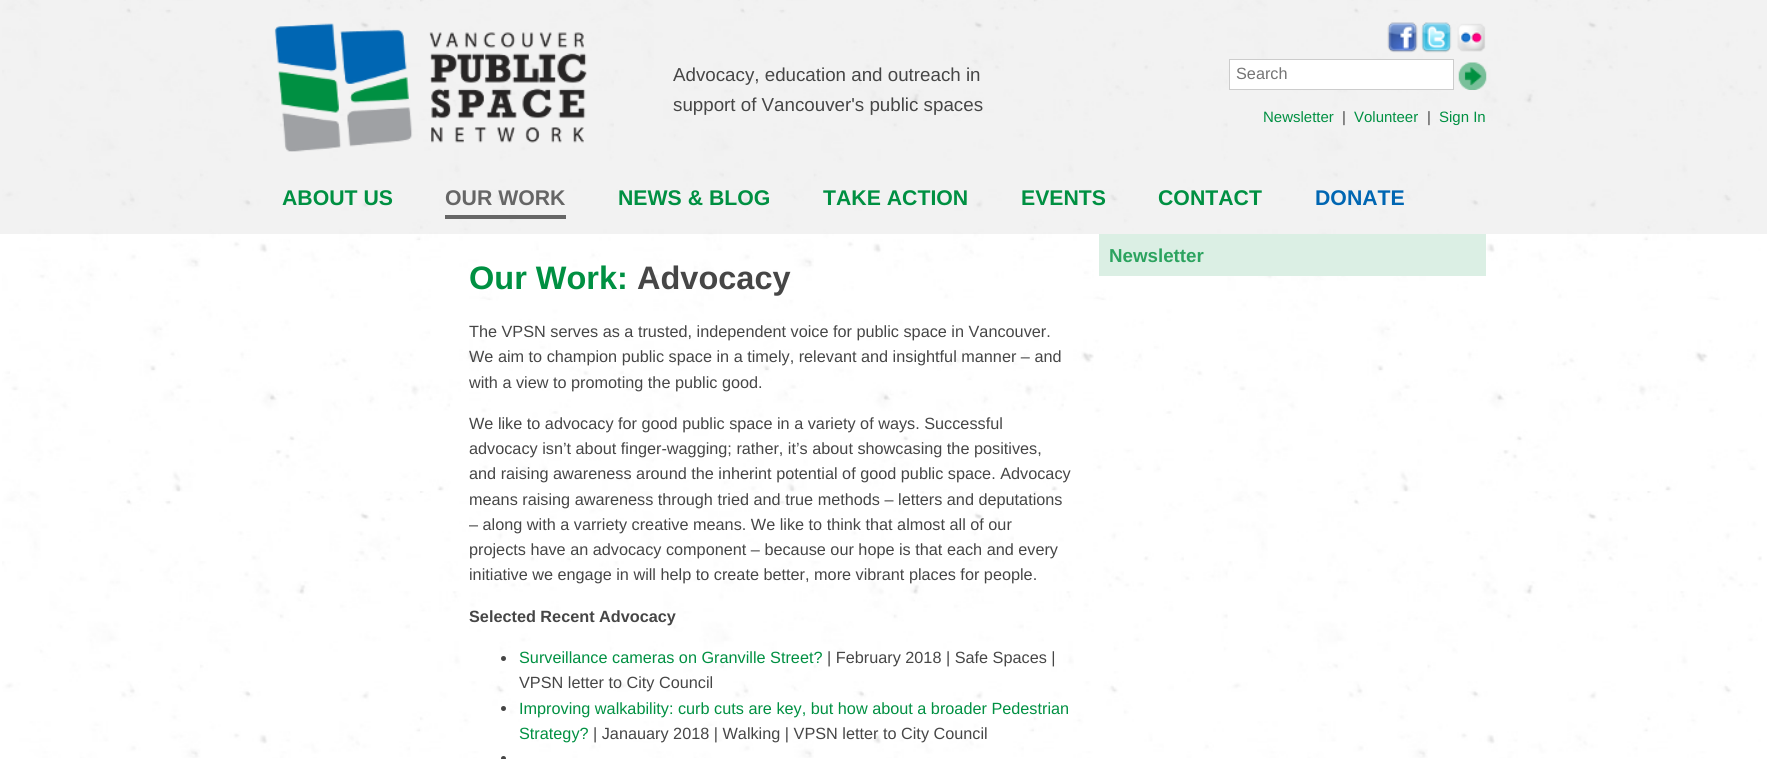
import math
import cairo

surface = cairo.ImageSurface(cairo.FORMAT_RGB24, 1767, 759)
ctx = cairo.Context(surface)
options = cairo.FontOptions()
options.set_hint_metrics(cairo.HINT_METRICS_OFF)
options.set_hint_style(cairo.HINT_STYLE_NONE)
ctx.set_font_options(options)
ctx.set_miter_limit(4)


def set_color(code):
    ctx.set_source_rgb(*(v / 255 for v in bytes.fromhex(code[-6:])))


def draw_text(x, y, s, family, size, color, bold=False, italic=False):
    ctx.select_font_face(family, cairo.FONT_SLANT_ITALIC if italic else cairo.FONT_SLANT_NORMAL, cairo.FONT_WEIGHT_BOLD if bold else cairo.FONT_WEIGHT_NORMAL)
    ctx.set_font_size(size)
    set_color(color)
    ctx.move_to(x, y)
    ctx.show_text(s)


def fill_rect(x, y, w, h, color):
    set_color(color)
    ctx.rectangle(x, y, w, h)
    ctx.fill()


def draw_image(path, x, y, w, h):
    ctx.save()
    ctx.set_source_surface(cairo.ImageSurface.create_from_png(path), x, y)
    ctx.rectangle(x, y, w, h)
    ctx.fill()
    ctx.restore()


set_color("#ffffff")
ctx.paint()
draw_image("assets/img1.png", 2, 0, 1760, 758)
ctx.set_source_rgba(0.8, 0.8, 0.8, 0.25)
ctx.rectangle(0, 0, 1767, 234)
ctx.fill()
draw_image("assets/img2.png", 274, 23, 313, 129)
draw_text(673, 81, "Advocacy, education and outreach in", "Liberation Sans", 18.75, "#464646")
draw_text(673, 111, "support of Vancouver's public spaces", "Liberation Sans", 18.75, "#464646")
draw_image("assets/img3.png", 1387, 22, 31, 31)
draw_image("assets/img4.png", 1421, 22, 31, 31)
draw_image("assets/img5.png", 1457, 23, 29, 29)
set_color("#ffffff")
ctx.rectangle(1229.5, 59.5, 224, 30)
ctx.fill_preserve()
set_color("#cccccc")
ctx.set_line_width(1)
ctx.stroke()
draw_text(1236, 79, "Search", "Liberation Sans", 16.25, "#757575")
draw_image("assets/img6.png", 1458, 62, 29, 28)
draw_text(1263, 122, "Newsletter", "Liberation Sans", 15, "#009042")
draw_text(1342, 122, "|", "Liberation Sans", 15, "#464646")
draw_text(1354, 122, "Volunteer", "Liberation Sans", 15, "#009042")
draw_text(1427, 122, "|", "Liberation Sans", 15, "#464646")
draw_text(1439, 122, "Sign In", "Liberation Sans", 15, "#009042")
draw_text(282, 205, "ABOUT US", "Liberation Sans", 21.25, "#009042", bold=True)
draw_text(445, 205, "OUR WORK", "Liberation Sans", 21.25, "#666666", bold=True)
fill_rect(445, 215, 121, 4, "#666666")
draw_text(618, 205, "NEWS & BLOG", "Liberation Sans", 21.25, "#009042", bold=True)
draw_text(823, 205, "TAKE ACTION", "Liberation Sans", 21.25, "#009042", bold=True)
draw_text(1021, 205, "EVENTS", "Liberation Sans", 21.25, "#009042", bold=True)
draw_text(1158, 205, "CONTACT", "Liberation Sans", 21.25, "#009042", bold=True)
draw_text(1315, 205, "DONATE", "Liberation Sans", 21.25, "#0066b2", bold=True)
fill_rect(1099, 234, 387, 42, "#dbefe4")
draw_text(1109, 262, "Newsletter", "Liberation Sans", 18.75, "#2ca35f", bold=True)
draw_text(469, 289, "Our Work:", "Liberation Sans", 32.5, "#009042", bold=True)
draw_text(637, 289, "Advocacy", "Liberation Sans", 32.5, "#464646", bold=True)
draw_text(469, 337, "The VPSN serves as a trusted, independent voice for public space in Vancouver.", "Liberation Sans", 16.25, "#464646")
draw_text(469, 362, "We aim to champion public space in a timely, relevant and insightful manner – and", "Liberation Sans", 16.25, "#464646")
draw_text(469, 388, "with a view to promoting the public good.", "Liberation Sans", 16.25, "#464646")
draw_text(469, 429, "We like to advocacy for good public space in a variety of ways. Successful", "Liberation Sans", 16.25, "#464646")
draw_text(469, 454, "advocacy isn’t about finger-wagging; rather, it’s about showcasing the positives,", "Liberation Sans", 16.25, "#464646")
draw_text(469, 479, "and raising awareness around the inherint potential of good public space. Advocacy", "Liberation Sans", 16.25, "#464646")
draw_text(469, 505, "means raising awareness through tried and true methods – letters and deputations", "Liberation Sans", 16.25, "#464646")
draw_text(469, 530, "– along with a varriety creative means. We like to think that almost all of our", "Liberation Sans", 16.25, "#464646")
draw_text(469, 555, "projects have an advocacy component – because our hope is that each and every", "Liberation Sans", 16.25, "#464646")
draw_text(469, 580, "initiative we engage in will help to create better, more vibrant places for people.", "Liberation Sans", 16.25, "#464646")
draw_text(469, 622, "Selected Recent Advocacy", "Liberation Sans", 16.25, "#464646", bold=True)
ctx.new_path()
ctx.arc(503.5, 658.5, 2.5, 0, 2 * math.pi)
ctx.fill()
draw_text(519, 663, "Surveillance cameras on Granville Street?", "Liberation Sans", 16.25, "#009042")
draw_text(827, 663, "| February 2018 | Safe Spaces |", "Liberation Sans", 16.25, "#464646")
draw_text(519, 688, "VPSN letter to City Council", "Liberation Sans", 16.25, "#464646")
ctx.new_path()
ctx.arc(503.5, 708.5, 2.5, 0, 2 * math.pi)
ctx.fill()
draw_text(519, 714, "Improving walkability: curb cuts are key, but how about a broader Pedestrian", "Liberation Sans", 16.25, "#009042")
draw_text(519, 739, "Strategy?", "Liberation Sans", 16.25, "#009042")
draw_text(593, 739, "| Janauary 2018 | Walking | VPSN letter to City Council", "Liberation Sans", 16.25, "#464646")
ctx.new_path()
ctx.arc(503.5, 758.5, 2.5, 0, 2 * math.pi)
ctx.fill()
surface.write_to_png("output.png")
